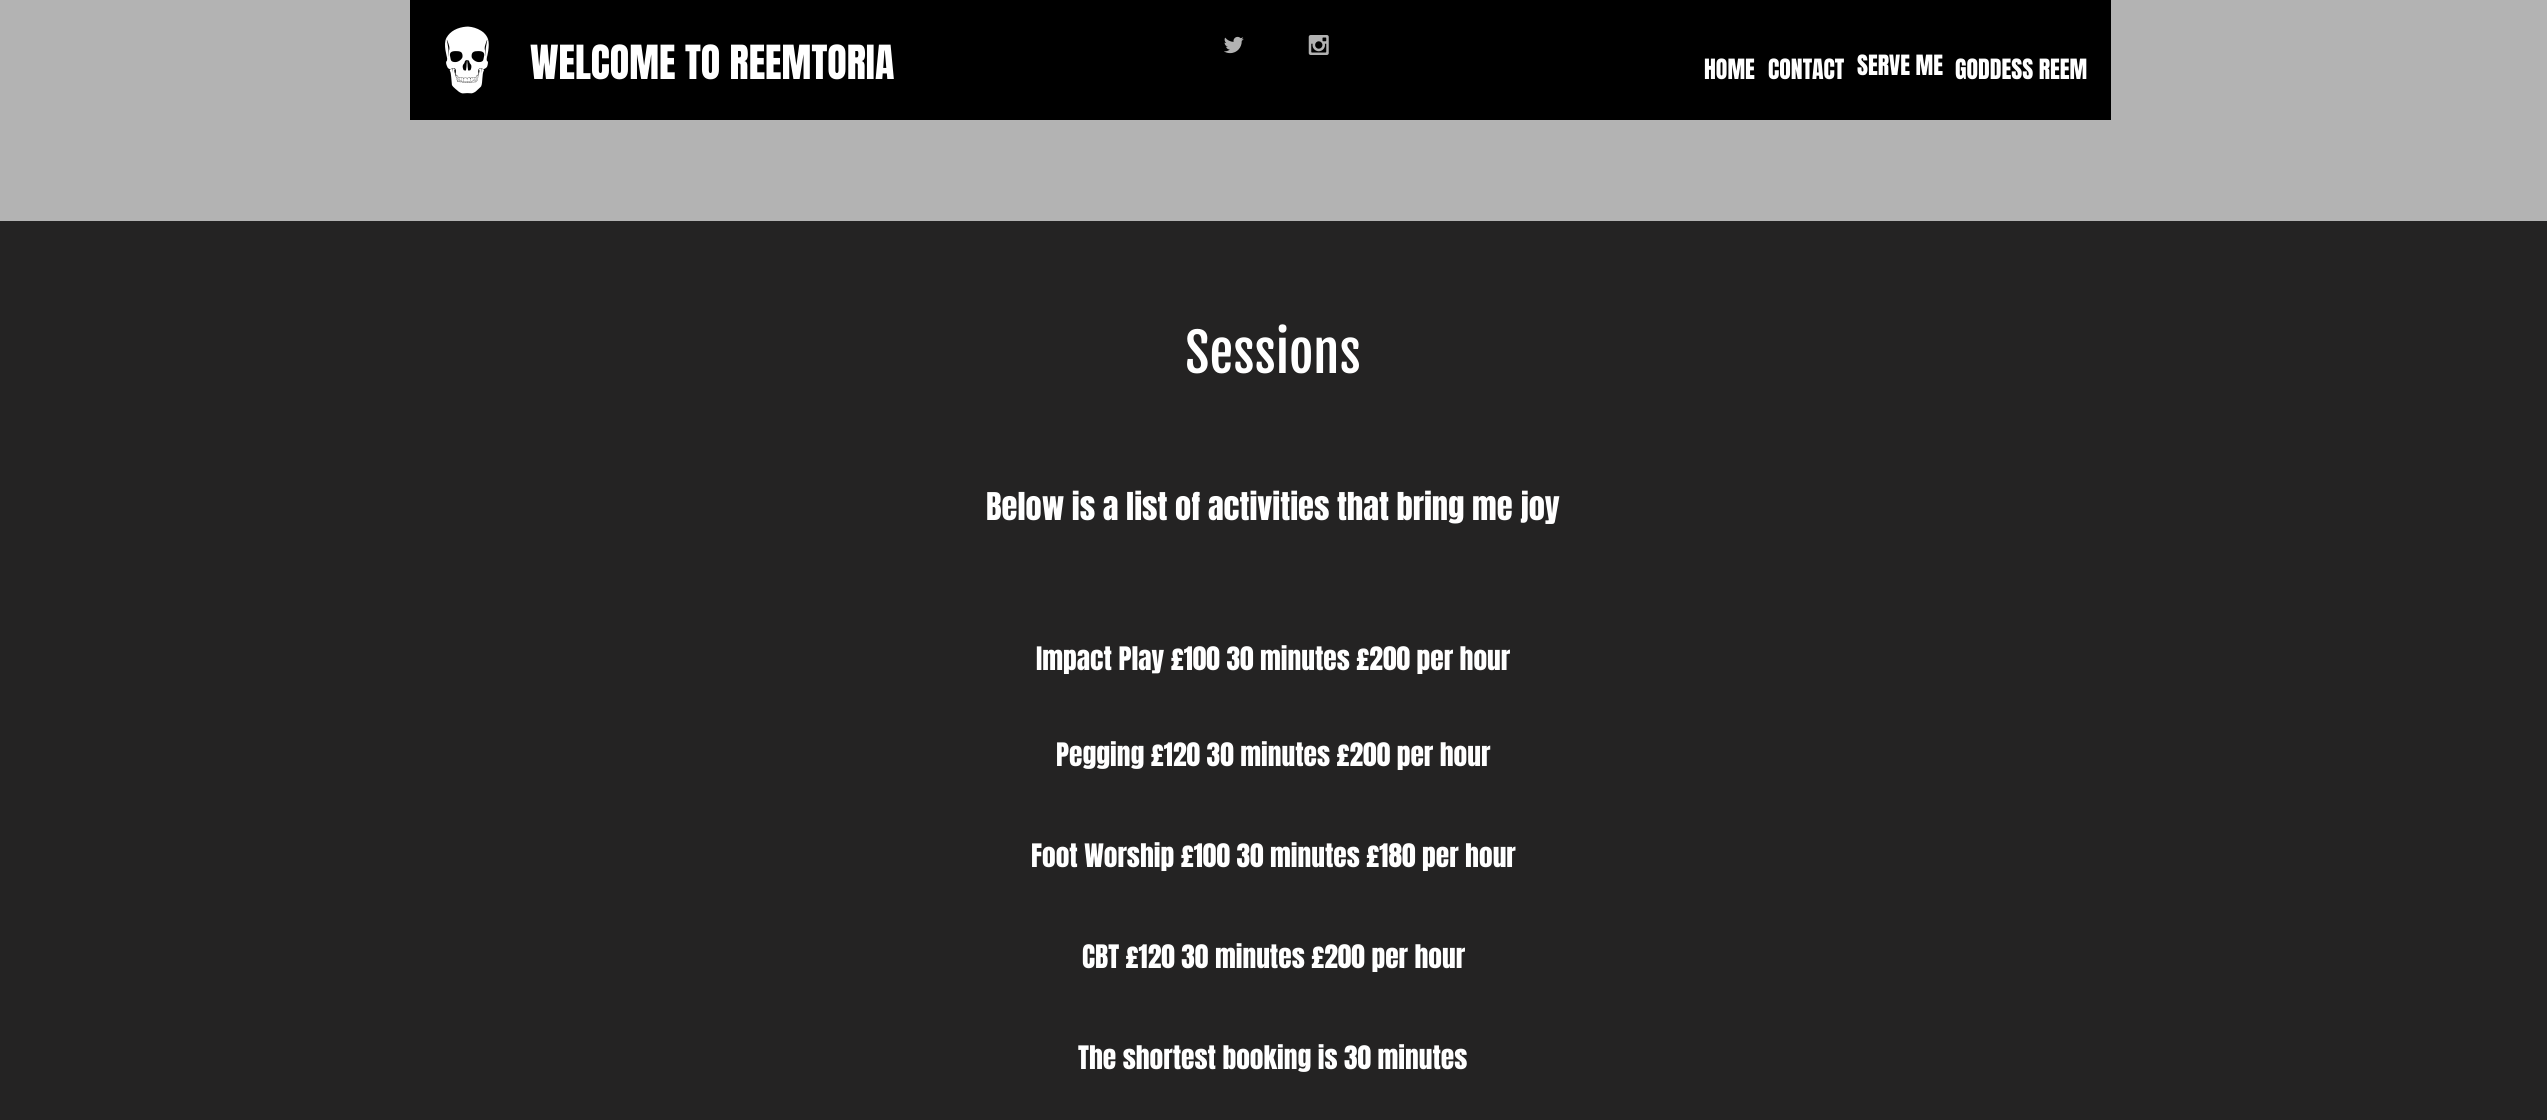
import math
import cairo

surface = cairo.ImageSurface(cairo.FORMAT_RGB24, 2547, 1120)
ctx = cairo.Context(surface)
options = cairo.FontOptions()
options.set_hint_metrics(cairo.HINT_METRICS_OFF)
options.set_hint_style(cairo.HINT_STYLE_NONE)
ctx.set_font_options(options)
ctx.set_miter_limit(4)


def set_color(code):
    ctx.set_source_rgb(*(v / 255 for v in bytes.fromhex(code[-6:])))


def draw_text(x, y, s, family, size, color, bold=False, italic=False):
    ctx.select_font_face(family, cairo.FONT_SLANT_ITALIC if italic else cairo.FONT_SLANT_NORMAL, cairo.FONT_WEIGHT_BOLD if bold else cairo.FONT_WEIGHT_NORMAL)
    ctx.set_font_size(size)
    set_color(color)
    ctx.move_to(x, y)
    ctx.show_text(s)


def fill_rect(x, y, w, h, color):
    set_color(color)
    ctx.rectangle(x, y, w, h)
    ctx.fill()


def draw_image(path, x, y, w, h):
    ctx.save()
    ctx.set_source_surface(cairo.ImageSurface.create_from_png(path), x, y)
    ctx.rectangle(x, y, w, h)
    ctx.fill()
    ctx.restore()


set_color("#b3b3b3")
ctx.paint()
fill_rect(410, 0, 1701, 120, "#000000")
draw_image("assets/img1.png", 445, 26, 44, 68)
draw_text(530, 79, "WELCOME TO REEMTORIA", "Anton", 40, "#ffffff")
draw_image("assets/img2.png", 1224, 36, 20, 18)
draw_image("assets/img3.png", 1308, 35, 21, 20)
draw_text(1704, 79, "HOME", "Anton", 23.75, "#ffffff")
draw_text(1768, 79, "CONTACT", "Anton", 23.75, "#ffffff")
draw_text(1857, 75, "SERVE ME", "Anton", 23.75, "#ffffff")
draw_text(1955, 79, "GODDESS REEM", "Anton", 23.75, "#ffffff")
fill_rect(0, 221, 2547, 899, "#242323")
draw_text(1185, 373, "Sessions", "Fjalla One", 52.5, "#ffffff")
draw_text(986, 520, "Below is a list of activities that bring me joy", "Anton", 32.5, "#ffffff")
draw_text(1036, 670, "Impact Play £100 30 minutes £200 per hour", "Anton", 27.5, "#ffffff")
draw_text(1056, 766, "Pegging £120 30 minutes £200 per hour", "Anton", 27.5, "#ffffff")
draw_text(1031, 867, "Foot Worship £100 30 minutes £180 per hour", "Anton", 27.5, "#ffffff")
draw_text(1082, 968, "CBT £120 30 minutes £200 per hour", "Anton", 27.5, "#ffffff")
draw_text(1078, 1069, "The shortest booking is 30 minutes", "Anton", 27.5, "#ffffff")
surface.write_to_png("output.png")
